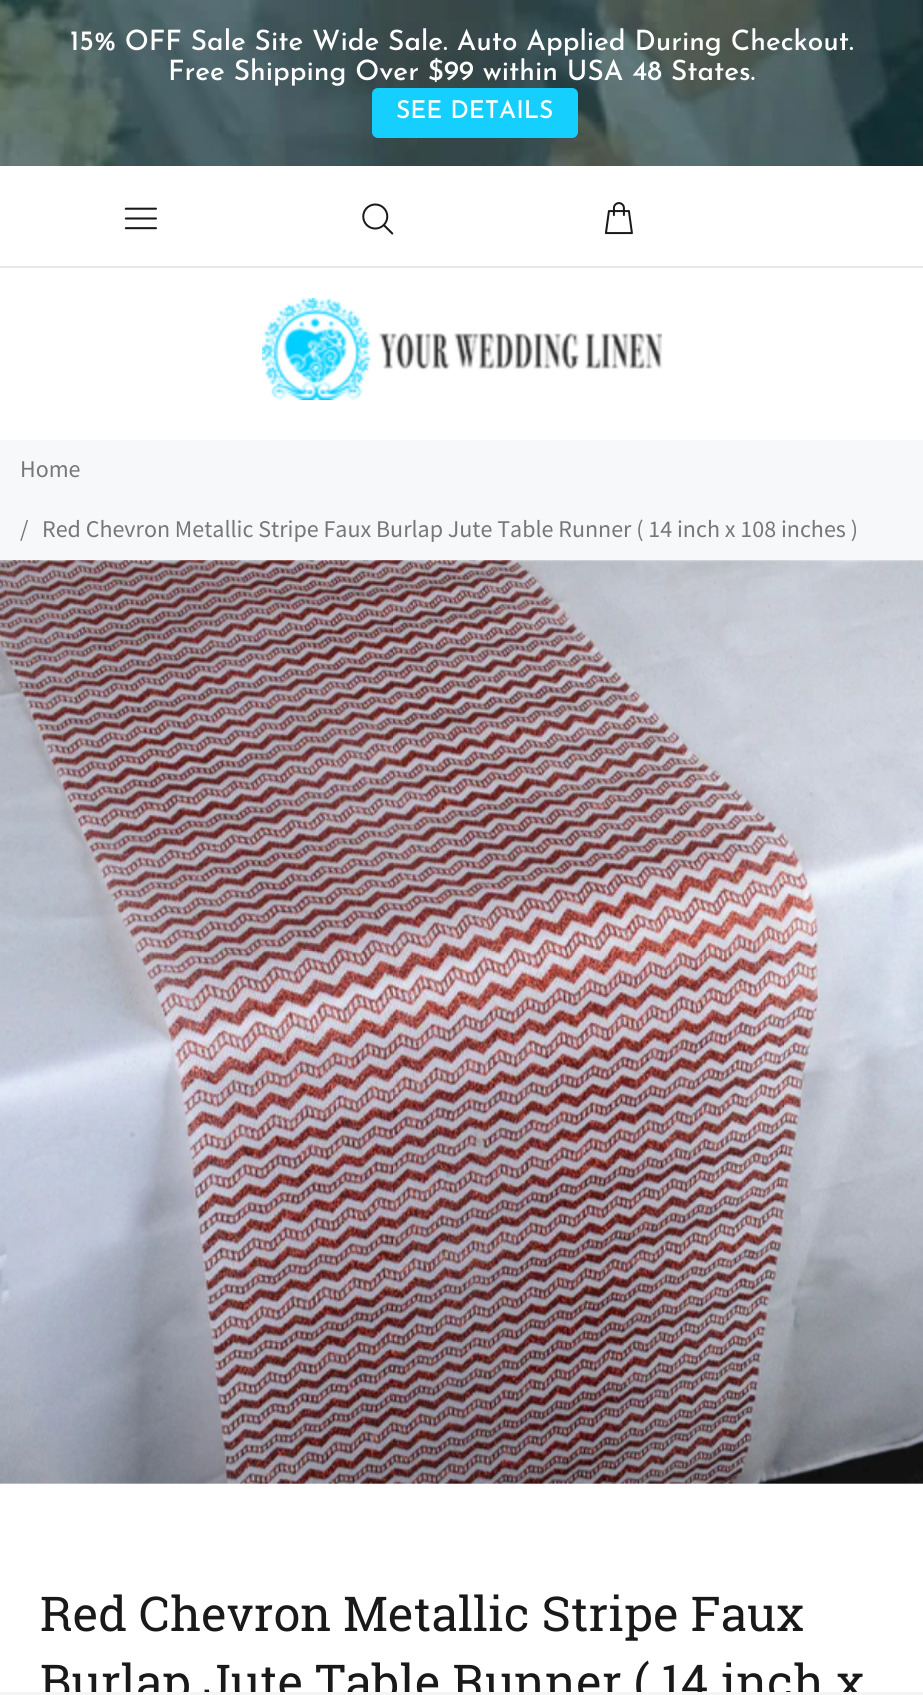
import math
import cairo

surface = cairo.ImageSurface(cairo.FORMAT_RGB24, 923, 1695)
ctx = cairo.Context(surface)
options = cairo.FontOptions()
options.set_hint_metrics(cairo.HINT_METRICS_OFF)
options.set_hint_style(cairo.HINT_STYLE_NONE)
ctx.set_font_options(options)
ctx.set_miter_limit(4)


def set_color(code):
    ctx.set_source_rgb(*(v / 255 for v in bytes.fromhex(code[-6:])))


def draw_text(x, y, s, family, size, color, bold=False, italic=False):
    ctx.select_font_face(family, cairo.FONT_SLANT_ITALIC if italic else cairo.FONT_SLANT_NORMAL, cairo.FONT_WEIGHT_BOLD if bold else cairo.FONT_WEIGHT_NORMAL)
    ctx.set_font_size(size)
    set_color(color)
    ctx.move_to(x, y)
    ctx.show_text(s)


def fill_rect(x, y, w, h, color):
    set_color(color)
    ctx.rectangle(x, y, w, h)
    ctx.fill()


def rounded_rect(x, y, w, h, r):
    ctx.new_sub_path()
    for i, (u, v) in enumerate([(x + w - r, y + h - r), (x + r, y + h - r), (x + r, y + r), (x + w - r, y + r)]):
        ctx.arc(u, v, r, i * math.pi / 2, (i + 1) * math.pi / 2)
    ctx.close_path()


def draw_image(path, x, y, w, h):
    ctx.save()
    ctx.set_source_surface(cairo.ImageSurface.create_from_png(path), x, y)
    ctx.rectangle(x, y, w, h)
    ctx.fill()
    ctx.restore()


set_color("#ffffff")
ctx.paint()
draw_image("assets/img1.png", 0, 0, 923, 166)
draw_text(70, 50, "15% OFF Sale Site Wide Sale. Auto Applied During Checkout.", "Josefin Sans Medium", 28, "#ffffff")
draw_text(168, 80, "Free Shipping Over $99 within USA 48 States.", "Josefin Sans Medium", 28, "#ffffff")
set_color("#15cffe")
rounded_rect(372, 88, 206, 50, 6)
ctx.fill()
draw_text(396, 118, "SEE DETAILS", "Josefin Sans Medium", 24.5, "#ffffff")
draw_image("assets/img2.png", 124, 207, 33, 23)
draw_image("assets/img3.png", 362, 203, 32, 32)
draw_image("assets/img4.png", 604, 202, 29, 33)
fill_rect(0, 266, 923, 2, "#e9e7e7")
draw_image("assets/img5.png", 262, 298, 400, 102)
fill_rect(0, 440, 923, 120, "#f7f8fa")
draw_text(20, 477, "Home", "Source Sans Pro", 24, "#777777")
draw_text(20, 537, "/", "Source Sans Pro", 24, "#777777")
draw_text(42, 537, "Red Chevron Metallic Stripe Faux Burlap Jute Table Runner ( 14 inch x 108 inches )", "Source Sans Pro", 24, "#777777")
draw_image("assets/img6.png", 0, 560, 923, 924)
draw_text(40, 1631, "Red Chevron Metallic Stripe Faux", "Roboto Slab", 48, "#191919")
draw_text(40, 1699, "Burlap Jute Table Runner ( 14 inch x", "Roboto Slab", 48, "#191919")
fill_rect(0, 1692, 923, 3, "#f5f5f5")
surface.write_to_png("output.png")
